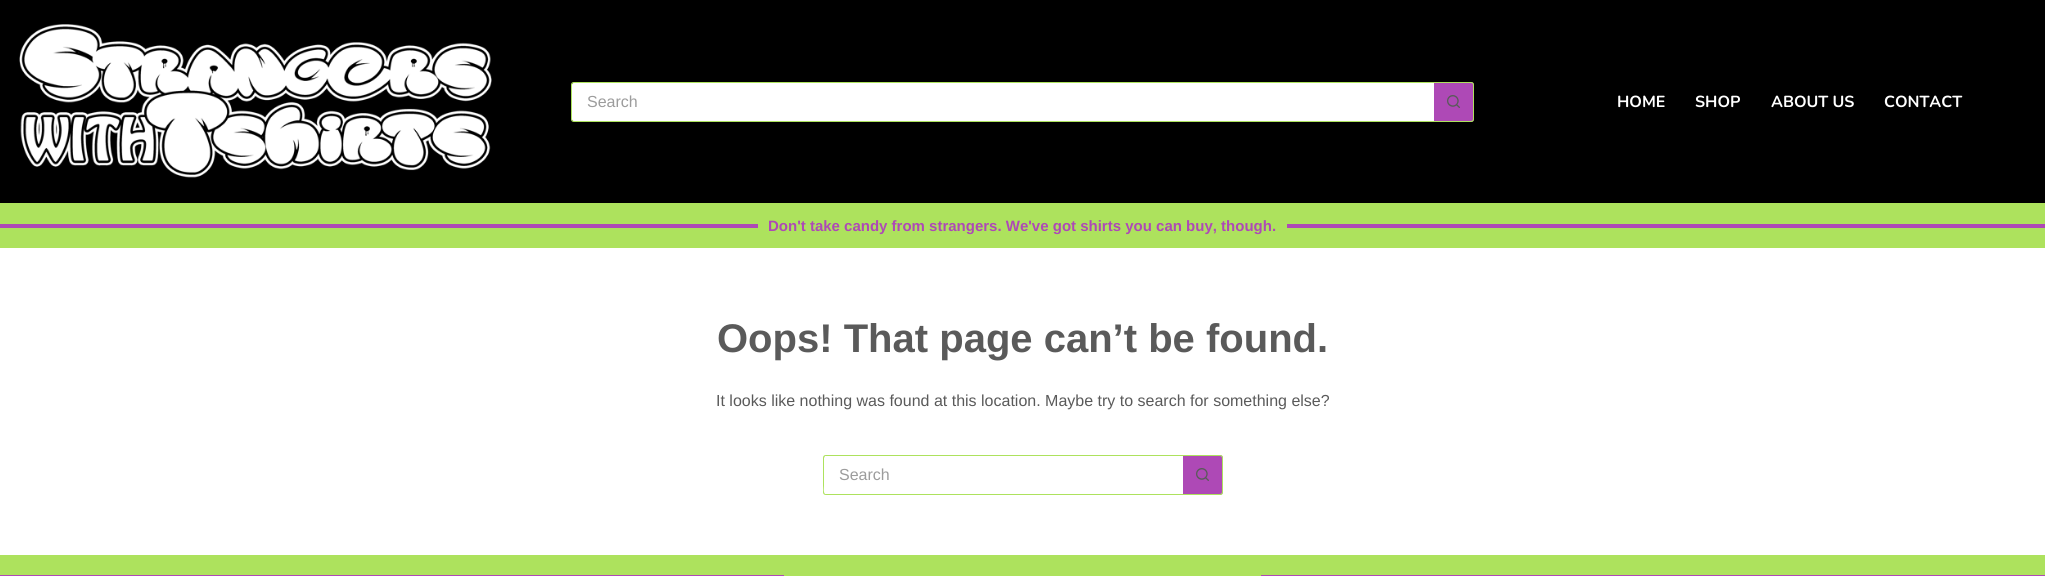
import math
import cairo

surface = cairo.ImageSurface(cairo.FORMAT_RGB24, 2045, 576)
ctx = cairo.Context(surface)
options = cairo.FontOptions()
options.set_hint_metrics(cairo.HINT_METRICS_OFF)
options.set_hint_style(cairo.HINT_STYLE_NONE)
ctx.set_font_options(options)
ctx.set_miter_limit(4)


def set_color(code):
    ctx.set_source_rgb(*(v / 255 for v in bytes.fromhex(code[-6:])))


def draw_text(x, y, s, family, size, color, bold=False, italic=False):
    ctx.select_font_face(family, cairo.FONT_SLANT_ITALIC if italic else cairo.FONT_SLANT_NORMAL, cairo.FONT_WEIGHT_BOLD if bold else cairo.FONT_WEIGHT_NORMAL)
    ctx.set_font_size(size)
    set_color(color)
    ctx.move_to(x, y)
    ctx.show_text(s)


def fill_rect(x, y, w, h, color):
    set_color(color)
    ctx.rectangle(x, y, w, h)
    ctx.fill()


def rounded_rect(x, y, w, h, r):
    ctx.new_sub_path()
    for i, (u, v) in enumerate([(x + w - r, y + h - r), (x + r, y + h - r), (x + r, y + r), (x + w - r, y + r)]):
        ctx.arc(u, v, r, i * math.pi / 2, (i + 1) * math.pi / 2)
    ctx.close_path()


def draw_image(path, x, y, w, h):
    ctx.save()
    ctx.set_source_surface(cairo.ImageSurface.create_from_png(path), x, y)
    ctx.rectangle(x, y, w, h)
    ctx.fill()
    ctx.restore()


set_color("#ffffff")
ctx.paint()
fill_rect(0, 0, 2045, 203, "#000000")
draw_image("assets/img1.png", 19, 24, 473, 154)
set_color("#ffffff")
rounded_rect(571, 82, 903, 40, 5)
ctx.fill()
set_color("#ade25d")
ctx.set_fill_rule(cairo.FILL_RULE_EVEN_ODD)
ctx.new_path()
ctx.move_to(574, 82)
ctx.line_to(1434, 82)
ctx.line_to(1434, 122)
ctx.line_to(574, 122)
ctx.curve_to(572, 122, 571, 121, 571, 119)
ctx.line_to(571, 85)
ctx.curve_to(571, 83, 572, 82, 574, 82)
ctx.close_path()
ctx.move_to(574, 83)
ctx.line_to(1434, 83)
ctx.line_to(1434, 121)
ctx.line_to(574, 121)
ctx.curve_to(573, 121, 572, 120, 572, 119)
ctx.line_to(572, 85)
ctx.curve_to(572, 84, 573, 83, 574, 83)
ctx.close_path()
ctx.fill()
draw_text(587, 107, "Search", "Liberation Sans", 16, "#9c9c9c")
set_color("#ae49b6")
ctx.new_path()
ctx.move_to(1434, 82)
ctx.line_to(1471, 82)
ctx.curve_to(1472.5, 82, 1474, 83.5, 1474, 85)
ctx.line_to(1474, 119)
ctx.curve_to(1474, 120.5, 1472.5, 122, 1471, 122)
ctx.line_to(1434, 122)
ctx.close_path()
ctx.fill()
set_color("#ade25d")
ctx.new_path()
ctx.move_to(1434, 82)
ctx.line_to(1471, 82)
ctx.curve_to(1473, 82, 1474, 83, 1474, 85)
ctx.line_to(1474, 119)
ctx.curve_to(1474, 121, 1473, 122, 1471, 122)
ctx.line_to(1434, 122)
ctx.close_path()
ctx.move_to(1434, 83)
ctx.line_to(1471, 83)
ctx.curve_to(1472, 83, 1473, 84, 1473, 85)
ctx.line_to(1473, 119)
ctx.curve_to(1473, 120, 1472, 121, 1471, 121)
ctx.line_to(1434, 121)
ctx.close_path()
ctx.fill()
draw_image("assets/img2.png", 1447, 95, 13, 13)
draw_text(1617, 107, "HOME", "Nunito", 16, "#ffffff", bold=True)
draw_text(1695, 107, "SHOP", "Nunito", 16, "#ffffff", bold=True)
draw_text(1771, 107, "ABOUT US", "Nunito", 16, "#ffffff", bold=True)
draw_text(1884, 107, "CONTACT", "Nunito", 16, "#ffffff", bold=True)
fill_rect(0, 203, 2045, 45, "#ade25d")
fill_rect(0, 224, 758, 4, "#ae49b6")
draw_text(768, 231, "Don't take candy from strangers. We've got shirts you can buy, though.", "Liberation Sans", 15, "#ae49b6", bold=True)
fill_rect(1287, 224, 758, 4, "#ae49b6")
draw_text(717, 352, "Oops! That page can’t be found.", "Liberation Sans", 40, "#5a5a5a", bold=True)
draw_text(716, 406, "It looks like nothing was found at this location. Maybe try to search for something else?", "Liberation Sans", 16, "#5a5a5a")
set_color("#ade25d")
ctx.new_path()
ctx.move_to(826, 455)
ctx.line_to(1183, 455)
ctx.line_to(1183, 495)
ctx.line_to(826, 495)
ctx.curve_to(824, 495, 823, 494, 823, 492)
ctx.line_to(823, 458)
ctx.curve_to(823, 456, 824, 455, 826, 455)
ctx.close_path()
ctx.move_to(826, 456)
ctx.line_to(1183, 456)
ctx.line_to(1183, 494)
ctx.line_to(825, 494)
ctx.curve_to(823, 492, 824, 487, 824, 486)
ctx.line_to(824, 458)
ctx.line_to(825, 456)
ctx.close_path()
ctx.fill()
draw_text(839, 480, "Search", "Liberation Sans", 16, "#9c9c9c")
set_color("#ae49b6")
ctx.new_path()
ctx.move_to(1183, 455)
ctx.line_to(1220, 455)
ctx.curve_to(1221.5, 455, 1223, 456.5, 1223, 458)
ctx.line_to(1223, 492)
ctx.curve_to(1223, 493.5, 1221.5, 495, 1220, 495)
ctx.line_to(1183, 495)
ctx.close_path()
ctx.fill()
set_color("#ade25d")
ctx.new_path()
ctx.move_to(1183, 455)
ctx.line_to(1220, 455)
ctx.curve_to(1222, 455, 1223, 456, 1223, 458)
ctx.line_to(1223, 492)
ctx.curve_to(1223, 494, 1222, 495, 1220, 495)
ctx.line_to(1183, 495)
ctx.close_path()
ctx.move_to(1183, 456)
ctx.line_to(1220, 456)
ctx.curve_to(1221, 456, 1222, 457, 1222, 458)
ctx.line_to(1222, 492)
ctx.curve_to(1222, 493, 1221, 494, 1220, 494)
ctx.line_to(1183, 494)
ctx.close_path()
ctx.fill()
draw_image("assets/img2.png", 1196, 468, 13, 13)
fill_rect(0, 555, 2045, 21, "#ade25d")
fill_rect(0, 575, 784, 1, "#ae49b6")
fill_rect(1261, 575, 784, 1, "#ae49b6")
surface.write_to_png("output.png")
